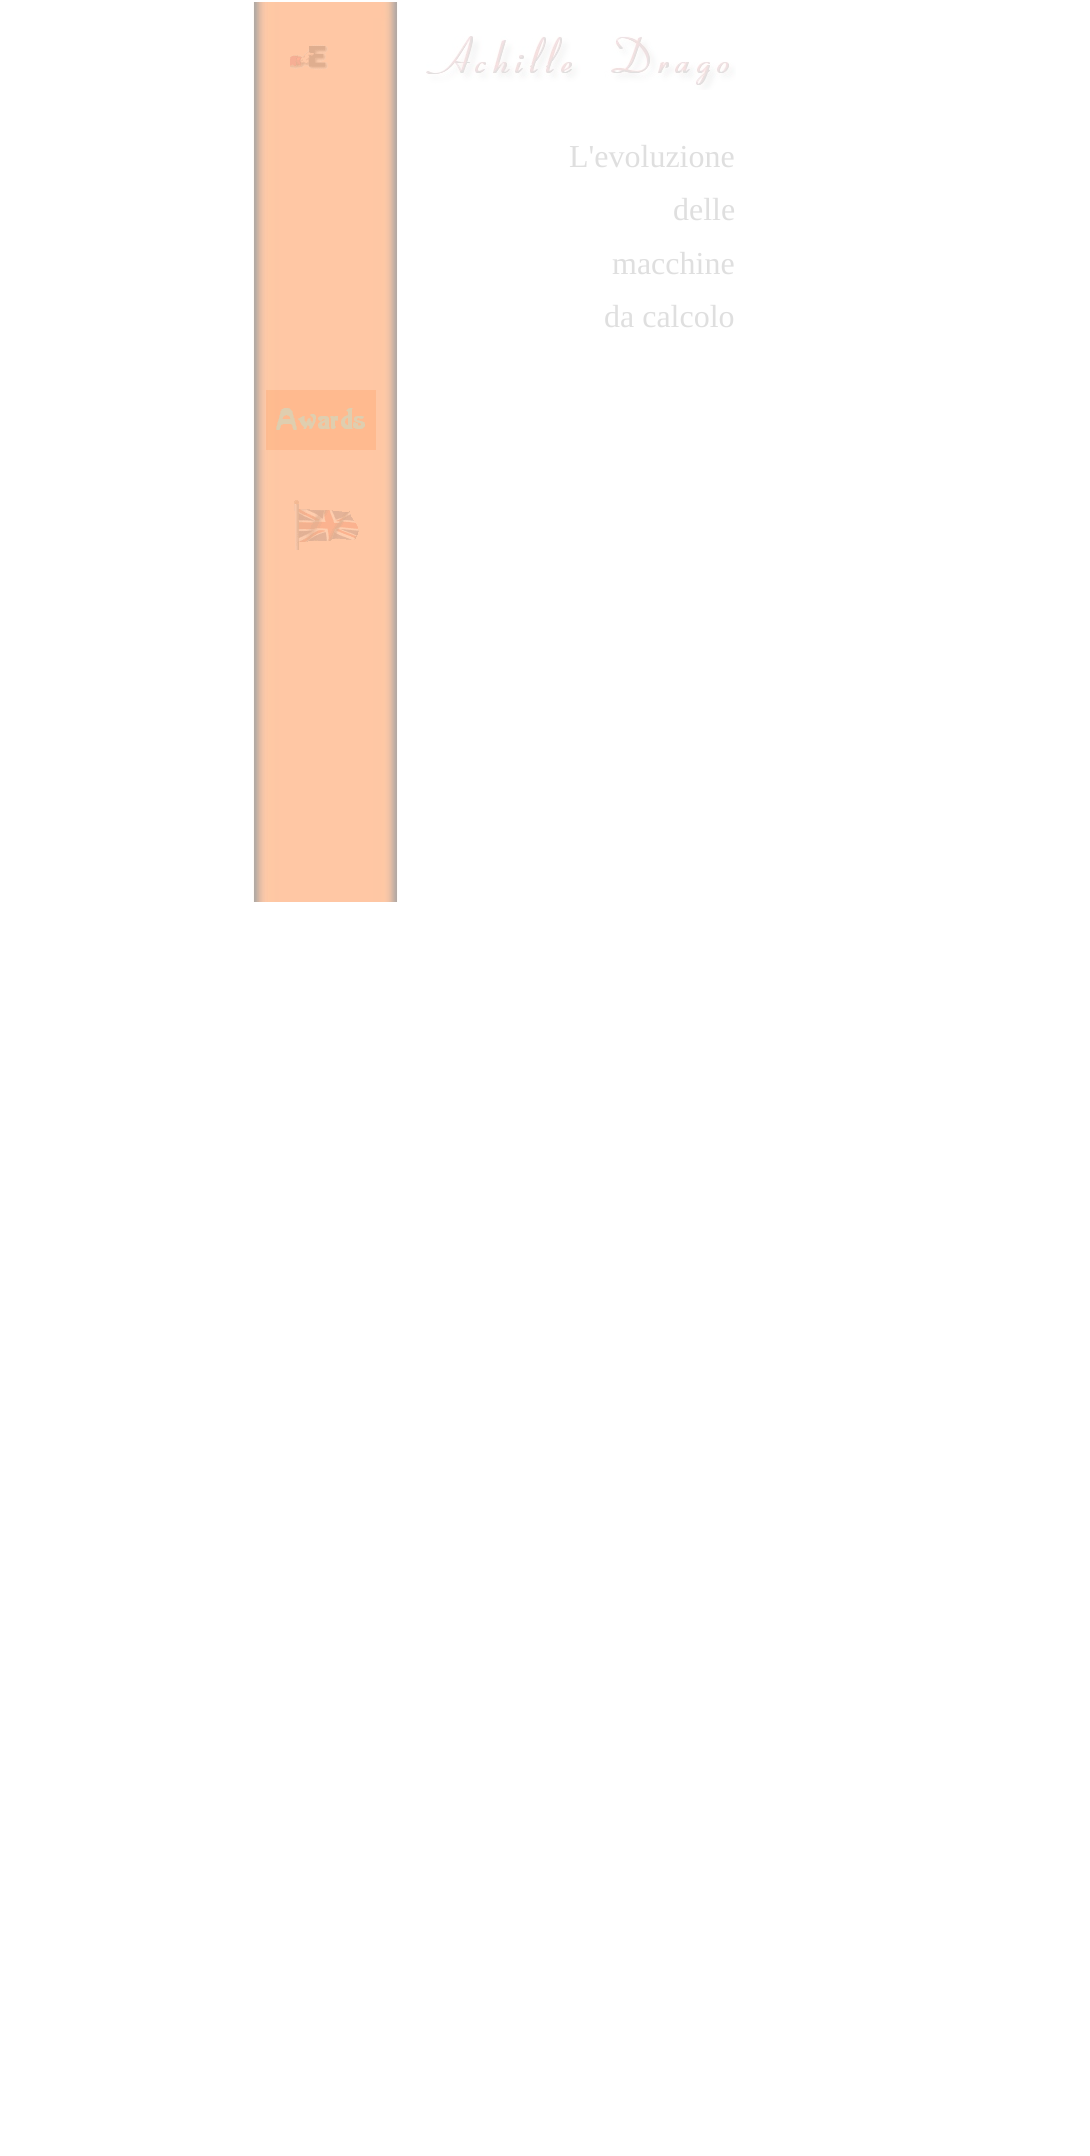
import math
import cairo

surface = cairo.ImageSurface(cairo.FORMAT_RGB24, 1090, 2156)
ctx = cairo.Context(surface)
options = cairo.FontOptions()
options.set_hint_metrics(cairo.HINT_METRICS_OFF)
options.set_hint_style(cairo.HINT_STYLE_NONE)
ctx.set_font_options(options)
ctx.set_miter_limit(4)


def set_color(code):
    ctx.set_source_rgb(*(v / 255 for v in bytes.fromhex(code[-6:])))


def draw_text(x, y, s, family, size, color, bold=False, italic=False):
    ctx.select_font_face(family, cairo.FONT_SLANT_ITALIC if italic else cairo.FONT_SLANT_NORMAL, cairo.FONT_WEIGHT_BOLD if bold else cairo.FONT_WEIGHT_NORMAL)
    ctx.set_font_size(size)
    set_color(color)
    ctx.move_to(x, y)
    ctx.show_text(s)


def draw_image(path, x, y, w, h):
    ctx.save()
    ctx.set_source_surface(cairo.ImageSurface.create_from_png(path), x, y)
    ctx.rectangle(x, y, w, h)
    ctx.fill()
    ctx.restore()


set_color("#ffffff")
ctx.paint()
draw_image("assets/img1.png", 253, 2, 145, 900)
draw_image("assets/img2.png", 426, 36, 310, 54)
draw_image("assets/img3.png", 290, 45, 38, 25)
draw_text(569, 167, "L'evoluzione", "Liberation Serif", 32, "#dfdfdf")
draw_text(673, 220, "delle", "Liberation Serif", 32, "#dfdfdf")
draw_text(612, 274, "macchine", "Liberation Serif", 32, "#dfdfdf")
draw_text(604, 327, "da calcolo", "Liberation Serif", 32, "#dfdfdf")
draw_image("assets/img4.png", 266, 390, 110, 60)
draw_image("assets/img5.png", 294, 500, 65, 50)
surface.write_to_png("output.png")
